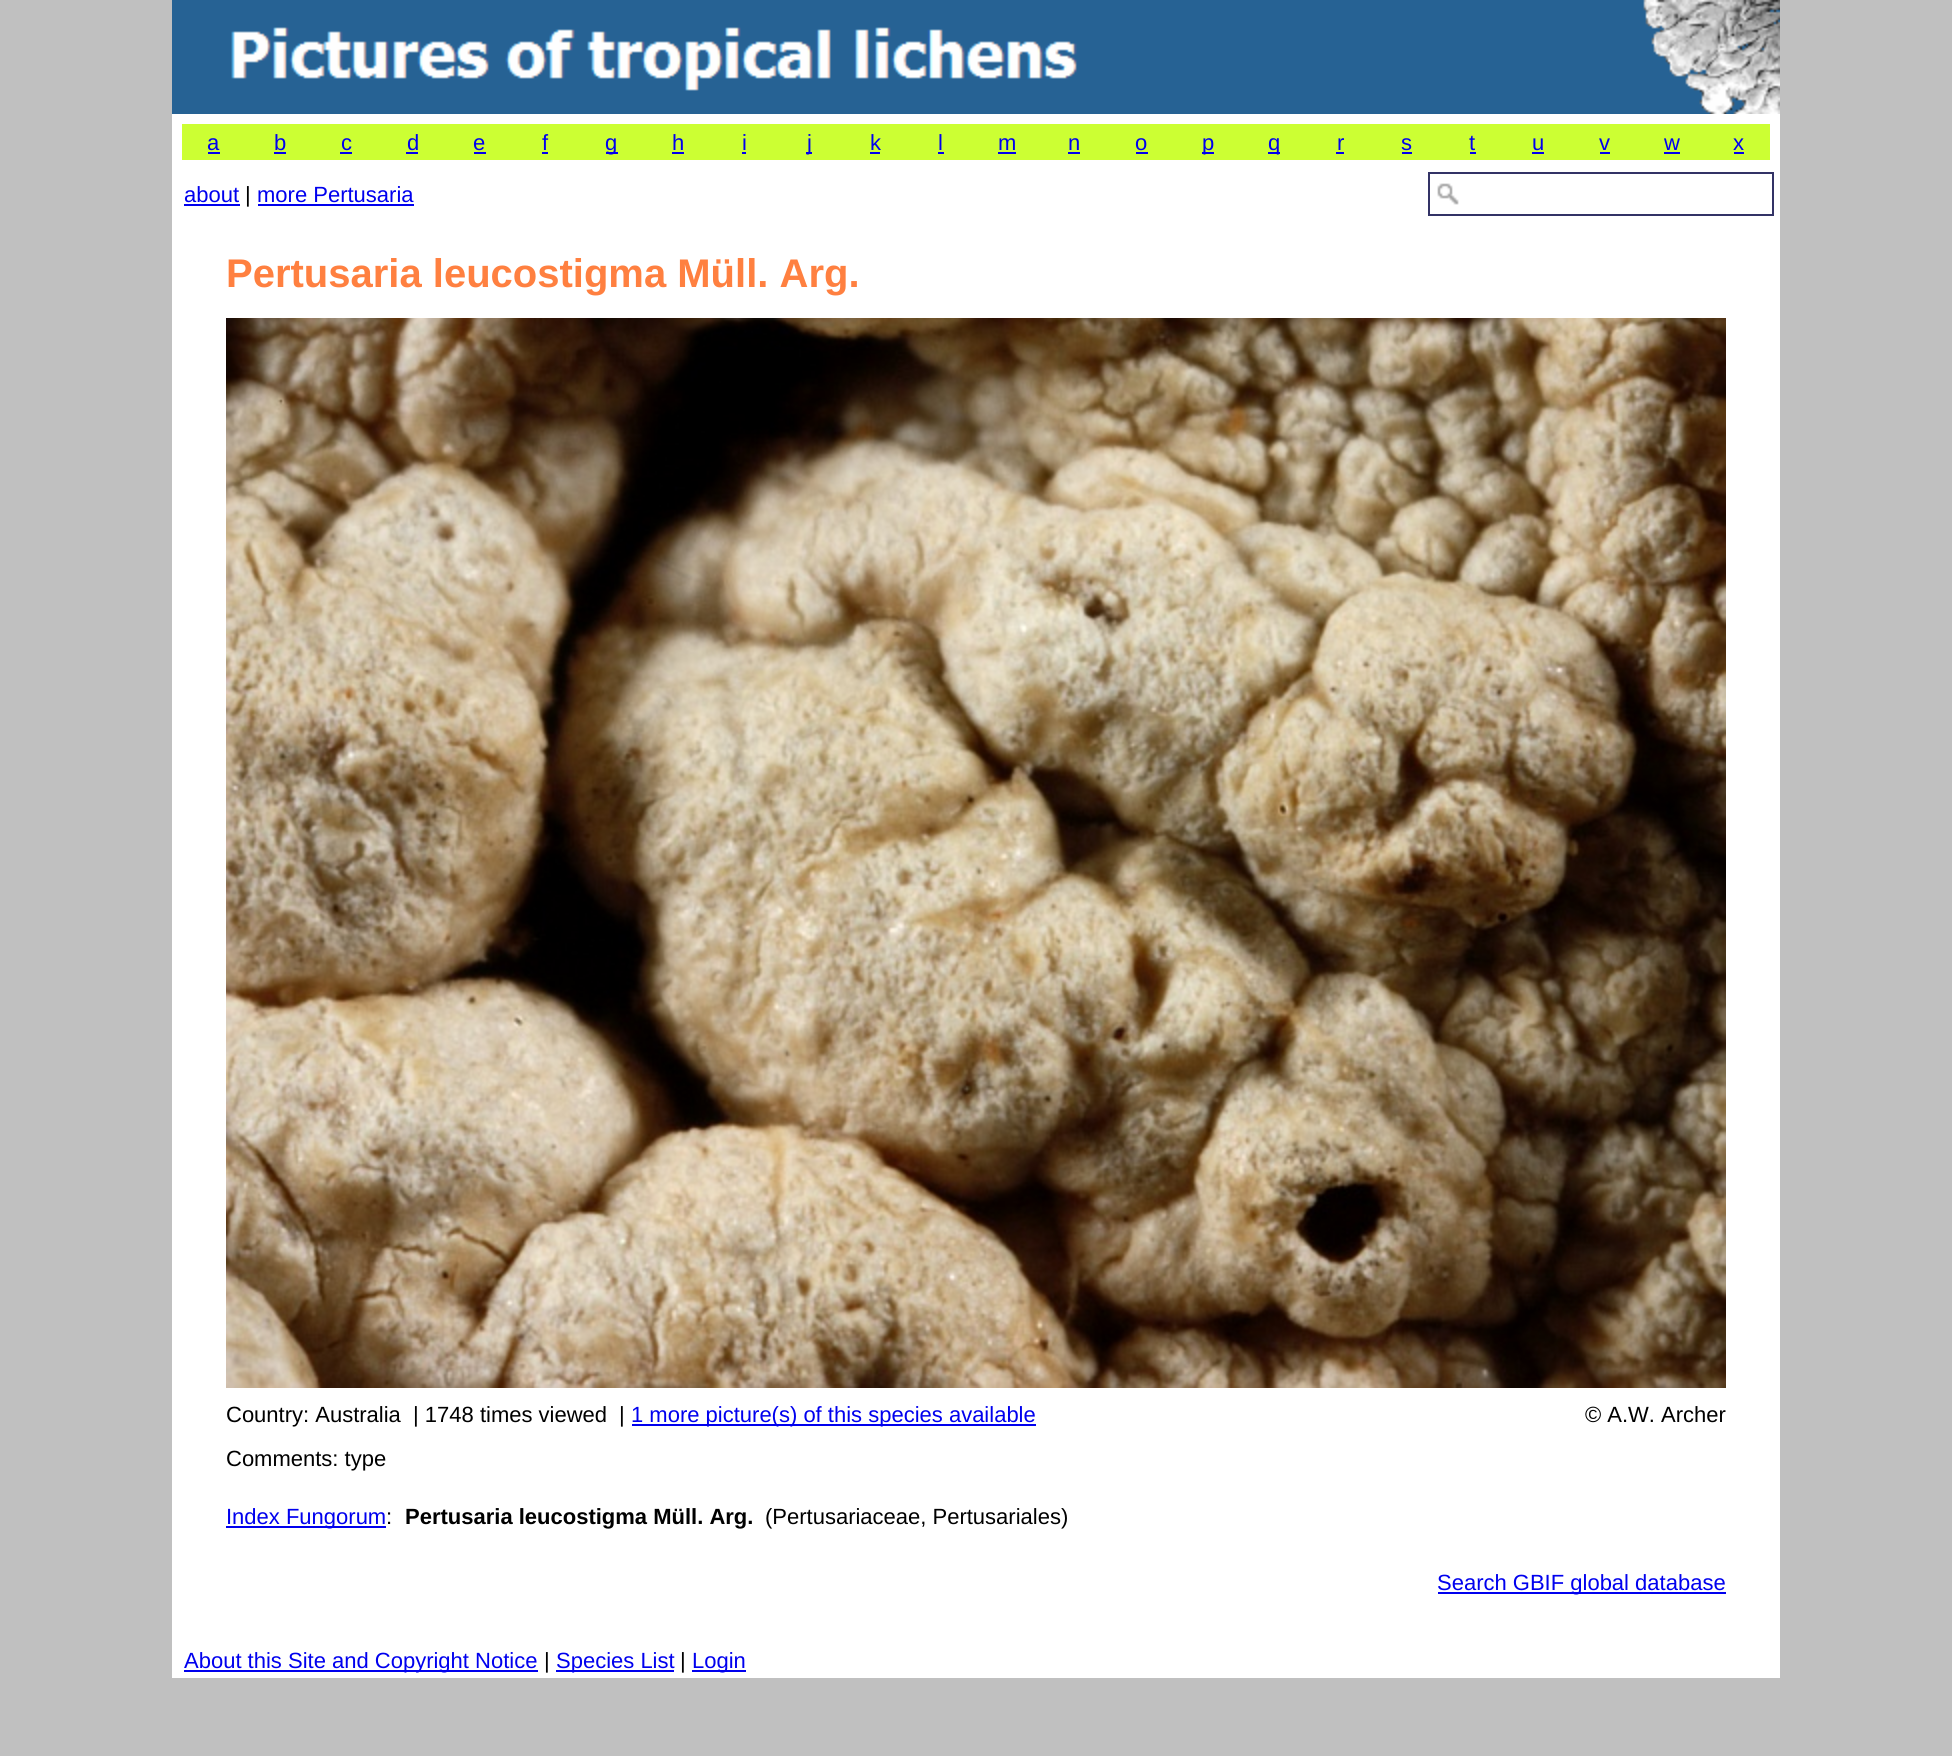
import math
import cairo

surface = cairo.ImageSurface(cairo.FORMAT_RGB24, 1952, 1756)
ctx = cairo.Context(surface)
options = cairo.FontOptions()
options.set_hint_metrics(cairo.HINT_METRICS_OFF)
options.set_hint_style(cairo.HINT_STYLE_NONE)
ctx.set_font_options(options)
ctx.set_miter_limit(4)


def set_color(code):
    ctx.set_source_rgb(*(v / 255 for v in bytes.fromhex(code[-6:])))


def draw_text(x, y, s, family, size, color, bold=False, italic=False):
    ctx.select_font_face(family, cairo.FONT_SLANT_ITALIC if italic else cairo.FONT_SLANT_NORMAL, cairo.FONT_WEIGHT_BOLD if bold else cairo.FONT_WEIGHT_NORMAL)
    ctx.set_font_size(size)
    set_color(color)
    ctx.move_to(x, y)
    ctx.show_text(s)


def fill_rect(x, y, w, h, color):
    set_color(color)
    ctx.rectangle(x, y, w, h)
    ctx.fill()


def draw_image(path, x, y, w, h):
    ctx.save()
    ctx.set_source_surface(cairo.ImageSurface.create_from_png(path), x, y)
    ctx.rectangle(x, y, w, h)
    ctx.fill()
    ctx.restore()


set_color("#c0c0c0")
ctx.paint()
fill_rect(172, 114, 1608, 1564, "#ffffff")
fill_rect(172, 0, 1608, 114, "#266294")
draw_image("assets/img1.png", 231, 0, 1549, 114)
fill_rect(182, 124, 1588, 36, "#ccff33")
draw_text(207, 150, "a", "Liberation Sans", 22, "#0000ee")
fill_rect(208, 152, 12, 2, "#0000ee")
draw_text(274, 150, "b", "Liberation Sans", 22, "#0000ee")
fill_rect(274, 152, 12, 2, "#0000ee")
draw_text(341, 150, "c", "Liberation Sans", 22, "#0000ee")
fill_rect(340, 152, 12, 2, "#0000ee")
draw_text(407, 150, "d", "Liberation Sans", 22, "#0000ee")
fill_rect(406, 152, 12, 2, "#0000ee")
draw_text(473, 150, "e", "Liberation Sans", 22, "#0000ee")
fill_rect(474, 152, 12, 2, "#0000ee")
draw_text(542, 150, "f", "Liberation Sans", 22, "#0000ee")
fill_rect(542, 152, 6, 2, "#0000ee")
fill_rect(606, 152, 12, 2, "#0000ee")
draw_text(605, 150, "g", "Liberation Sans", 22, "#0000ee")
draw_text(672, 150, "h", "Liberation Sans", 22, "#0000ee")
fill_rect(672, 152, 12, 2, "#0000ee")
draw_text(742, 150, "i", "Liberation Sans", 22, "#0000ee")
fill_rect(742, 152, 4, 2, "#0000ee")
fill_rect(806, 152, 6, 2, "#0000ee")
draw_text(807, 150, "j", "Liberation Sans", 22, "#0000ee")
draw_text(870, 150, "k", "Liberation Sans", 22, "#0000ee")
fill_rect(870, 152, 10, 2, "#0000ee")
draw_text(938, 150, "l", "Liberation Sans", 22, "#0000ee")
fill_rect(938, 152, 6, 2, "#0000ee")
draw_text(998, 150, "m", "Liberation Sans", 22, "#0000ee")
fill_rect(998, 152, 18, 2, "#0000ee")
draw_text(1068, 150, "n", "Liberation Sans", 22, "#0000ee")
fill_rect(1068, 152, 12, 2, "#0000ee")
draw_text(1135, 150, "o", "Liberation Sans", 22, "#0000ee")
fill_rect(1136, 152, 12, 2, "#0000ee")
fill_rect(1202, 152, 12, 2, "#0000ee")
draw_text(1202, 150, "p", "Liberation Sans", 22, "#0000ee")
fill_rect(1268, 152, 12, 2, "#0000ee")
draw_text(1268, 150, "q", "Liberation Sans", 22, "#0000ee")
draw_text(1337, 150, "r", "Liberation Sans", 22, "#0000ee")
fill_rect(1336, 152, 8, 2, "#0000ee")
draw_text(1401, 150, "s", "Liberation Sans", 22, "#0000ee")
fill_rect(1402, 152, 10, 2, "#0000ee")
draw_text(1469, 150, "t", "Liberation Sans", 22, "#0000ee")
fill_rect(1470, 152, 6, 2, "#0000ee")
draw_text(1532, 150, "u", "Liberation Sans", 22, "#0000ee")
fill_rect(1532, 152, 12, 2, "#0000ee")
draw_text(1599, 150, "v", "Liberation Sans", 22, "#0000ee")
fill_rect(1600, 152, 10, 2, "#0000ee")
draw_text(1664, 150, "w", "Liberation Sans", 22, "#0000ee")
fill_rect(1664, 152, 16, 2, "#0000ee")
draw_text(1733, 150, "x", "Liberation Sans", 22, "#0000ee")
fill_rect(1734, 152, 10, 2, "#0000ee")
draw_text(184, 202, "about", "Liberation Sans", 22, "#0000ee")
fill_rect(184, 204, 56, 2, "#0000ee")
draw_text(245, 202, "|", "Liberation Sans", 22, "#000000")
draw_text(257, 202, "more Pertusaria", "Liberation Sans", 22, "#0000ee")
fill_rect(258, 204, 156, 2, "#0000ee")
draw_image("assets/img2.png", 1437, 183, 22, 22)
ctx.rectangle(1429, 173, 344, 42)
set_color("#333366")
ctx.stroke()
draw_text(226, 287, "Pertusaria leucostigma Müll. Arg.", "Liberation Sans", 40, "#ff8040", bold=True)
draw_image("assets/img3.png", 226, 318, 1500, 1070)
draw_text(226, 1422, "Country: Australia", "Liberation Sans", 22, "#000000")
draw_text(413, 1422, "| 1748 times viewed", "Liberation Sans", 22, "#000000")
draw_text(619, 1422, "|", "Liberation Sans", 22, "#000000")
fill_rect(632, 1424, 404, 2, "#0000ee")
draw_text(631, 1422, "1 more picture(s) of this species available", "Liberation Sans", 22, "#0000ee")
draw_text(1585, 1422, "© A.W. Archer", "Liberation Sans", 22, "#000000")
draw_text(226, 1466, "Comments: type", "Liberation Sans", 22, "#000000")
fill_rect(226, 1526, 160, 2, "#0000ee")
draw_text(226, 1524, "Index Fungorum", "Liberation Sans", 22, "#0000ee")
draw_text(386, 1524, ":", "Liberation Sans", 22, "#000000")
draw_text(405, 1524, "Pertusaria leucostigma Müll. Arg.", "Liberation Sans", 22, "#000000", bold=True)
draw_text(765, 1524, "(Pertusariaceae, Pertusariales)", "Liberation Sans", 22, "#000000")
fill_rect(1438, 1592, 288, 2, "#0000ee")
draw_text(1437, 1590, "Search GBIF global database", "Liberation Sans", 22, "#0000ee")
fill_rect(184, 1670, 354, 2, "#0000ee")
draw_text(184, 1668, "About this Site and Copyright Notice", "Liberation Sans", 22, "#0000ee")
draw_text(544, 1668, "|", "Liberation Sans", 22, "#000000")
fill_rect(556, 1670, 118, 2, "#0000ee")
draw_text(556, 1668, "Species List", "Liberation Sans", 22, "#0000ee")
draw_text(680, 1668, "|", "Liberation Sans", 22, "#000000")
fill_rect(692, 1670, 54, 2, "#0000ee")
draw_text(692, 1668, "Login", "Liberation Sans", 22, "#0000ee")
surface.write_to_png("output.png")
